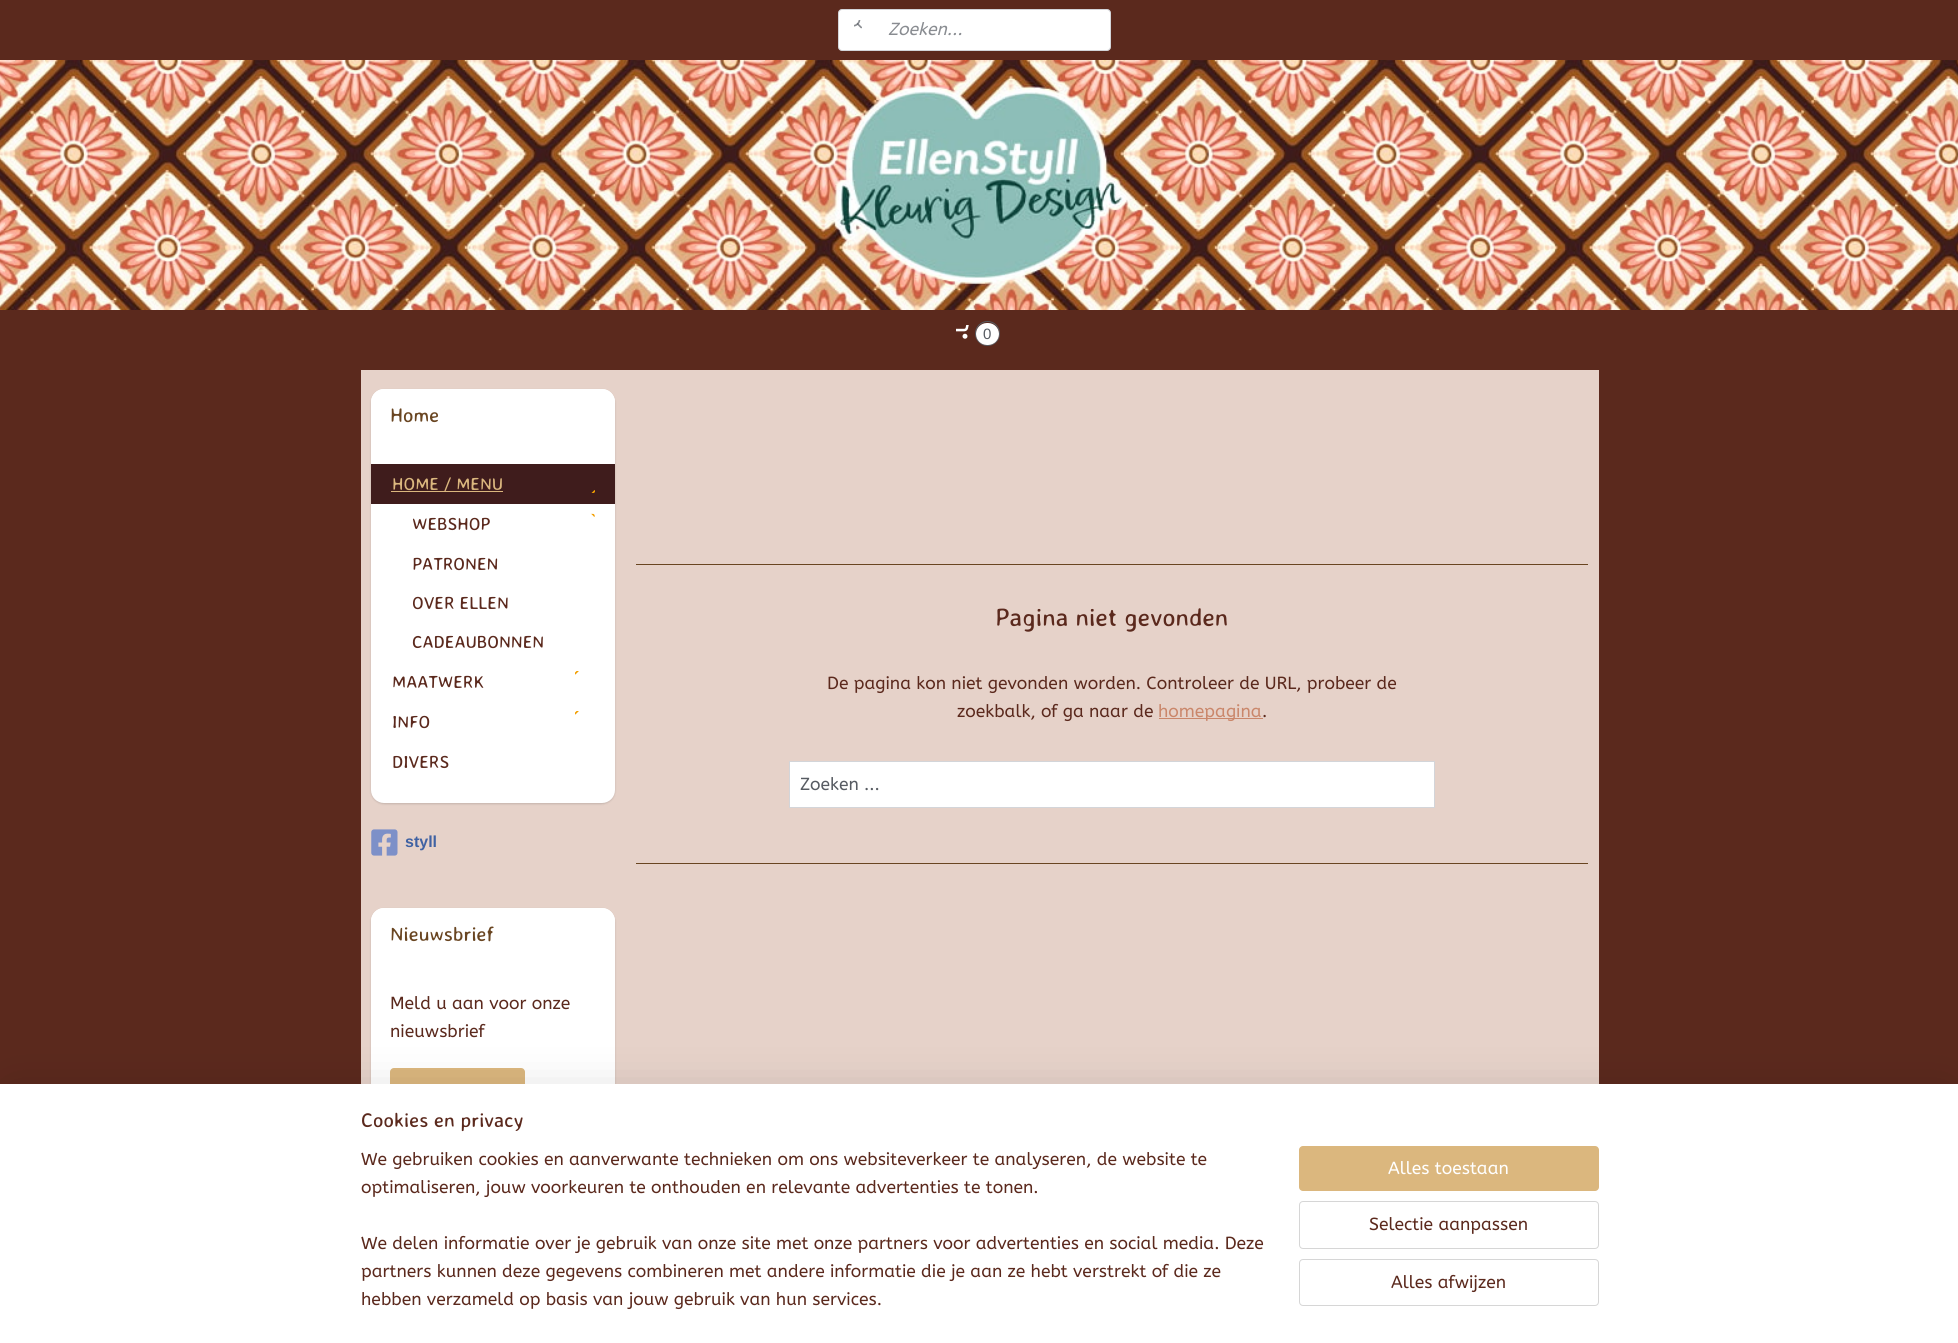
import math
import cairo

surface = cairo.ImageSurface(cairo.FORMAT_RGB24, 1958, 1343)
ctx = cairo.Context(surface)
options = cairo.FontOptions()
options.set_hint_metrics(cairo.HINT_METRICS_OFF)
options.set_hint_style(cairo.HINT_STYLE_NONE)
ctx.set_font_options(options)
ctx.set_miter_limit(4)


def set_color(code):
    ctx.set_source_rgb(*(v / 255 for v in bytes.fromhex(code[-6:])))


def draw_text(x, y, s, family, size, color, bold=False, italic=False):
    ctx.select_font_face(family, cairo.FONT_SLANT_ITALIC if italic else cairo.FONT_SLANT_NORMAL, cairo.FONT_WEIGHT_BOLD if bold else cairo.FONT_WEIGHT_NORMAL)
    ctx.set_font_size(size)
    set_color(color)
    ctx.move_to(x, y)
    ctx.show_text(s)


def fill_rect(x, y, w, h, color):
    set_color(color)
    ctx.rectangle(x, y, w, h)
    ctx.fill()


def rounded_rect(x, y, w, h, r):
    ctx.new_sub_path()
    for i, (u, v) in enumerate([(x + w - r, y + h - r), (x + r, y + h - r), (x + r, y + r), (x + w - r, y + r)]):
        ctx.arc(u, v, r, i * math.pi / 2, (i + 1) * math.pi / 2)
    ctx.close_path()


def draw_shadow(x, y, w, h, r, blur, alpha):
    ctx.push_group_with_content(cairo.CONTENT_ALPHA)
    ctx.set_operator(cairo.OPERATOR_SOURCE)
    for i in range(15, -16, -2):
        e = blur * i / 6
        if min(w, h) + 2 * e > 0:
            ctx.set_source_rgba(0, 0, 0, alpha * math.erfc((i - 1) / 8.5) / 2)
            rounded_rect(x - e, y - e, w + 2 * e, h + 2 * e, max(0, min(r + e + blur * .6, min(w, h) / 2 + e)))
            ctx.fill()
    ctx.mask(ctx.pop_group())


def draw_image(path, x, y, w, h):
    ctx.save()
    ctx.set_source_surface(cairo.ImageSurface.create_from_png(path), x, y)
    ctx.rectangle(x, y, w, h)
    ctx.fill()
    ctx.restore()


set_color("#5b291d")
ctx.paint()
set_color("#ffffff")
rounded_rect(838.5, 9.5, 272, 41, 3.5)
ctx.fill_preserve()
set_color("#d3d5d9")
ctx.set_line_width(1)
ctx.stroke()
draw_image("assets/img1.png", 854, 20, 8, 9)
draw_text(888, 35, "Zoeken...", "ABeeZee", 17.5, "#898c91", italic=True)
draw_image("assets/img2.png", 0, 60, 1958, 250)
draw_image("assets/img3.png", 956, 325, 13, 14)
ctx.arc(987.5, 333.5, 12, 0, 2 * math.pi)
set_color("#575b62")
ctx.stroke()
set_color("#ffffff")
rounded_rect(976, 323, 23, 22, 11)
ctx.fill()
draw_text(983, 339, "0", "Liberation Sans", 15, "#575b62")
fill_rect(361, 370, 1238, 714, "#e6d2c9")
set_color("#000000")
draw_shadow(371, 390, 244, 414, 13, 1, 0.15)
set_color("#ffffff")
rounded_rect(371, 389, 244, 414, 13)
ctx.fill()
ctx.new_path()
ctx.move_to(384, 389)
ctx.line_to(602, 389)
ctx.curve_to(609, 389, 615, 395, 615, 402)
ctx.line_to(615, 441)
ctx.line_to(371, 441)
ctx.line_to(371, 402)
ctx.curve_to(371, 395, 377, 389, 384, 389)
ctx.close_path()
ctx.fill()
draw_text(390, 422, "Home", "Averia Sans Libre", 20, "#694521")
fill_rect(371, 464, 244, 40, "#3f1c1c")
fill_rect(391, 491, 112, 1, "#dbb77e")
draw_text(392, 490, "HOME / MENU", "Averia Sans Libre", 17.5, "#dbb77e")
draw_image("assets/img4.png", 591, 490, 4, 3)
draw_image("assets/img5.png", 590, 513, 5, 4)
draw_text(412, 530, "WEBSHOP", "Averia Sans Libre", 17.5, "#5b291d")
draw_text(412, 570, "PATRONEN", "Averia Sans Libre", 17.5, "#5b291d")
draw_text(412, 609, "OVER ELLEN", "Averia Sans Libre", 17.5, "#5b291d")
draw_text(412, 648, "CADEAUBONNEN", "Averia Sans Libre", 17.5, "#5b291d")
draw_image("assets/img6.png", 575, 671, 4, 4)
draw_text(392, 688, "MAATWERK", "Averia Sans Libre", 17.5, "#5b291d")
draw_image("assets/img6.png", 575, 711, 4, 4)
draw_text(392, 728, "INFO", "Averia Sans Libre", 17.5, "#5b291d")
draw_text(392, 768, "DIVERS", "Averia Sans Libre", 17.5, "#5b291d")
draw_image("assets/img7.png", 371, 829, 27, 27)
draw_text(405, 847, "styll", "Liberation Sans", 16, "#4062a3", bold=True)
set_color("#000000")
draw_shadow(371, 909, 244, 221, 13, 1, 0.15)
set_color("#ffffff")
rounded_rect(371, 908, 244, 221, 13)
ctx.fill()
ctx.new_path()
ctx.move_to(384, 908)
ctx.line_to(602, 908)
ctx.curve_to(609, 908, 615, 914, 615, 921)
ctx.line_to(615, 960)
ctx.line_to(371, 960)
ctx.line_to(371, 921)
ctx.curve_to(371, 914, 377, 908, 384, 908)
ctx.close_path()
ctx.fill()
draw_text(390, 941, "Nieuwsbrief", "Averia Sans Libre", 20, "#694521")
draw_text(390, 1009, "Meld u aan voor onze", "ABeeZee", 17.5, "#5b291d")
draw_text(390, 1037, "nieuwsbrief", "ABeeZee", 17.5, "#5b291d")
set_color("#dbb77e")
rounded_rect(390, 1068, 135, 42, 4)
ctx.fill()
fill_rect(636, 564, 952, 1, "#694521")
fill_rect(636, 863, 952, 1, "#694521")
draw_text(995, 626, "Pagina niet gevonden", "Averia Sans Libre", 25, "#5b291d")
draw_text(827, 689, "De pagina kon niet gevonden worden. Controleer de URL, probeer de", "ABeeZee", 17.5, "#5b291d")
draw_text(957, 717, "zoekbalk, of ga naar de", "ABeeZee", 17.5, "#5b291d")
fill_rect(1159, 718, 104, 1, "#ca876b")
draw_text(1158, 717, "homepagina", "ABeeZee", 17.5, "#ca876b")
draw_text(1262, 717, ".", "ABeeZee", 17.5, "#5b291d")
set_color("#ffffff")
ctx.rectangle(789.5, 761.5, 645, 46)
ctx.fill_preserve()
set_color("#d3d5d9")
ctx.stroke()
draw_text(800, 790, "Zoeken ...", "ABeeZee", 17.5, "#575b62")
set_color("#000000")
draw_shadow(13, 1096, 1933, 235, 0, 22.5, 0.2)
fill_rect(0, 1084, 1958, 259, "#ffffff")
draw_text(361, 1127, "Cookies en privacy", "Averia Sans Libre", 20, "#5b291d")
draw_text(361, 1165, "We gebruiken cookies en aanverwante technieken om ons websiteverkeer te analyseren, de website te", "ABeeZee", 17.5, "#5b291d")
draw_text(361, 1193, "optimaliseren, jouw voorkeuren te onthouden en relevante advertenties te tonen.", "ABeeZee", 17.5, "#5b291d")
draw_text(361, 1249, "We delen informatie over je gebruik van onze site met onze partners voor advertenties en social media. Deze", "ABeeZee", 17.5, "#5b291d")
draw_text(361, 1277, "partners kunnen deze gegevens combineren met andere informatie die je aan ze hebt verstrekt of die ze", "ABeeZee", 17.5, "#5b291d")
draw_text(361, 1305, "hebben verzameld op basis van jouw gebruik van hun services.", "ABeeZee", 17.5, "#5b291d")
set_color("#dbb77e")
rounded_rect(1299, 1146, 300, 45, 4)
ctx.fill()
draw_text(1388, 1174, "Alles toestaan", "ABeeZee", 17.5, "#ffffff")
rounded_rect(1299.5, 1201.5, 299, 47, 3.5)
set_color("#d6d6d6")
ctx.stroke()
draw_text(1369, 1230, "Selectie aanpassen", "ABeeZee", 17.5, "#5b291d")
rounded_rect(1299.5, 1259.5, 299, 46, 3.5)
set_color("#d6d6d6")
ctx.stroke()
draw_text(1391, 1288, "Alles afwijzen", "ABeeZee", 17.5, "#5b291d")
surface.write_to_png("output.png")
